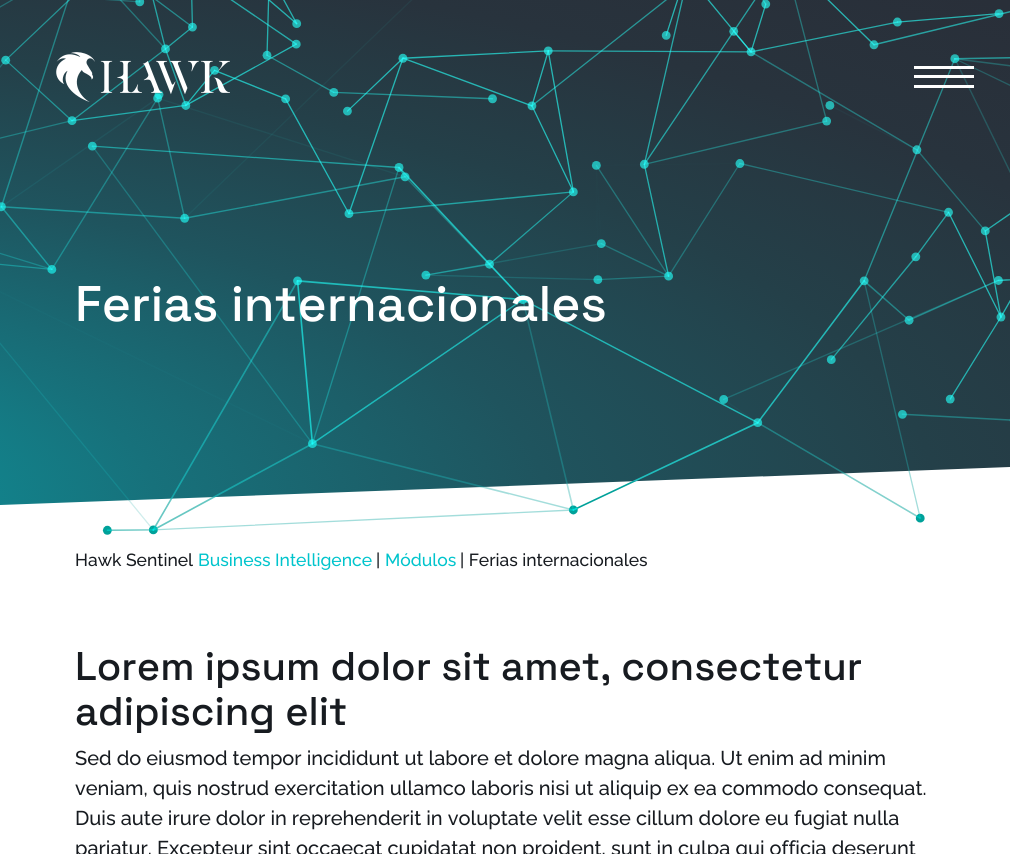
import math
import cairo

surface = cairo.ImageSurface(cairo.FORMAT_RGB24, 1010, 854)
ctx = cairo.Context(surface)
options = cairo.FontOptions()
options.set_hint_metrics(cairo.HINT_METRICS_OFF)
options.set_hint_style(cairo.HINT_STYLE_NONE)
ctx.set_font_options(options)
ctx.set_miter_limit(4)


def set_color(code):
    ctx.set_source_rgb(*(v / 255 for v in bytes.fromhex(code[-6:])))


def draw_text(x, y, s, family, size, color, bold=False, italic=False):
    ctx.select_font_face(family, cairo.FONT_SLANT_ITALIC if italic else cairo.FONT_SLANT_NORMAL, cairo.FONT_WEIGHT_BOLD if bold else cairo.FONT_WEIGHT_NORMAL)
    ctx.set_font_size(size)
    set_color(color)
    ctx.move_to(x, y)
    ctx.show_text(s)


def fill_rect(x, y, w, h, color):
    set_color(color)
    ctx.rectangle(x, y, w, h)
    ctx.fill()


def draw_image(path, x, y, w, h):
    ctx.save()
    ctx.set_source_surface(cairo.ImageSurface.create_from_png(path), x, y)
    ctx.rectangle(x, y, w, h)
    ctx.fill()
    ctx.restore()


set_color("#ffffff")
ctx.paint()
draw_image("assets/img2.png", 0, 0, 1010, 535)
draw_image("assets/img1.png", 56, 52, 174, 50)
fill_rect(914, 66, 60, 3, "#ffffff")
fill_rect(914, 75, 60, 3, "#ffffff")
fill_rect(914, 85, 60, 3, "#ffffff")
draw_text(75, 321, "Ferias internacionales", "Space Grotesk Medium", 50, "#ffffff")
draw_text(75, 566, "Hawk Sentinel", "Raleway Medium", 17.5, "#171b20")
draw_text(198, 566, "Business Intelligence", "Raleway Medium", 17.5, "#00c4cc")
draw_text(376, 566, "|", "Raleway Medium", 17.5, "#171b20")
draw_text(385, 566, "Módulos", "Raleway Medium", 17.5, "#00c4cc")
draw_text(460, 566, "| Ferias internacionales", "Raleway Medium", 17.5, "#171b20")
draw_text(75, 680, "Lorem ipsum dolor sit amet, consectetur", "Space Grotesk Medium", 40, "#171b20")
draw_text(75, 725, "adipiscing elit", "Space Grotesk Medium", 40, "#171b20")
draw_text(75, 765, "Sed do eiusmod tempor incididunt ut labore et dolore magna aliqua. Ut enim ad minim", "Raleway Medium", 20, "#171b20")
draw_text(75, 795, "veniam, quis nostrud exercitation ullamco laboris nisi ut aliquip ex ea commodo consequat.", "Raleway Medium", 20, "#171b20")
draw_text(75, 825, "Duis aute irure dolor in reprehenderit in voluptate velit esse cillum dolore eu fugiat nulla", "Raleway Medium", 20, "#171b20")
draw_text(75, 855, "pariatur. Excepteur sint occaecat cupidatat non proident, sunt in culpa qui officia deserunt", "Raleway Medium", 20, "#171b20")
surface.write_to_png("output.png")
